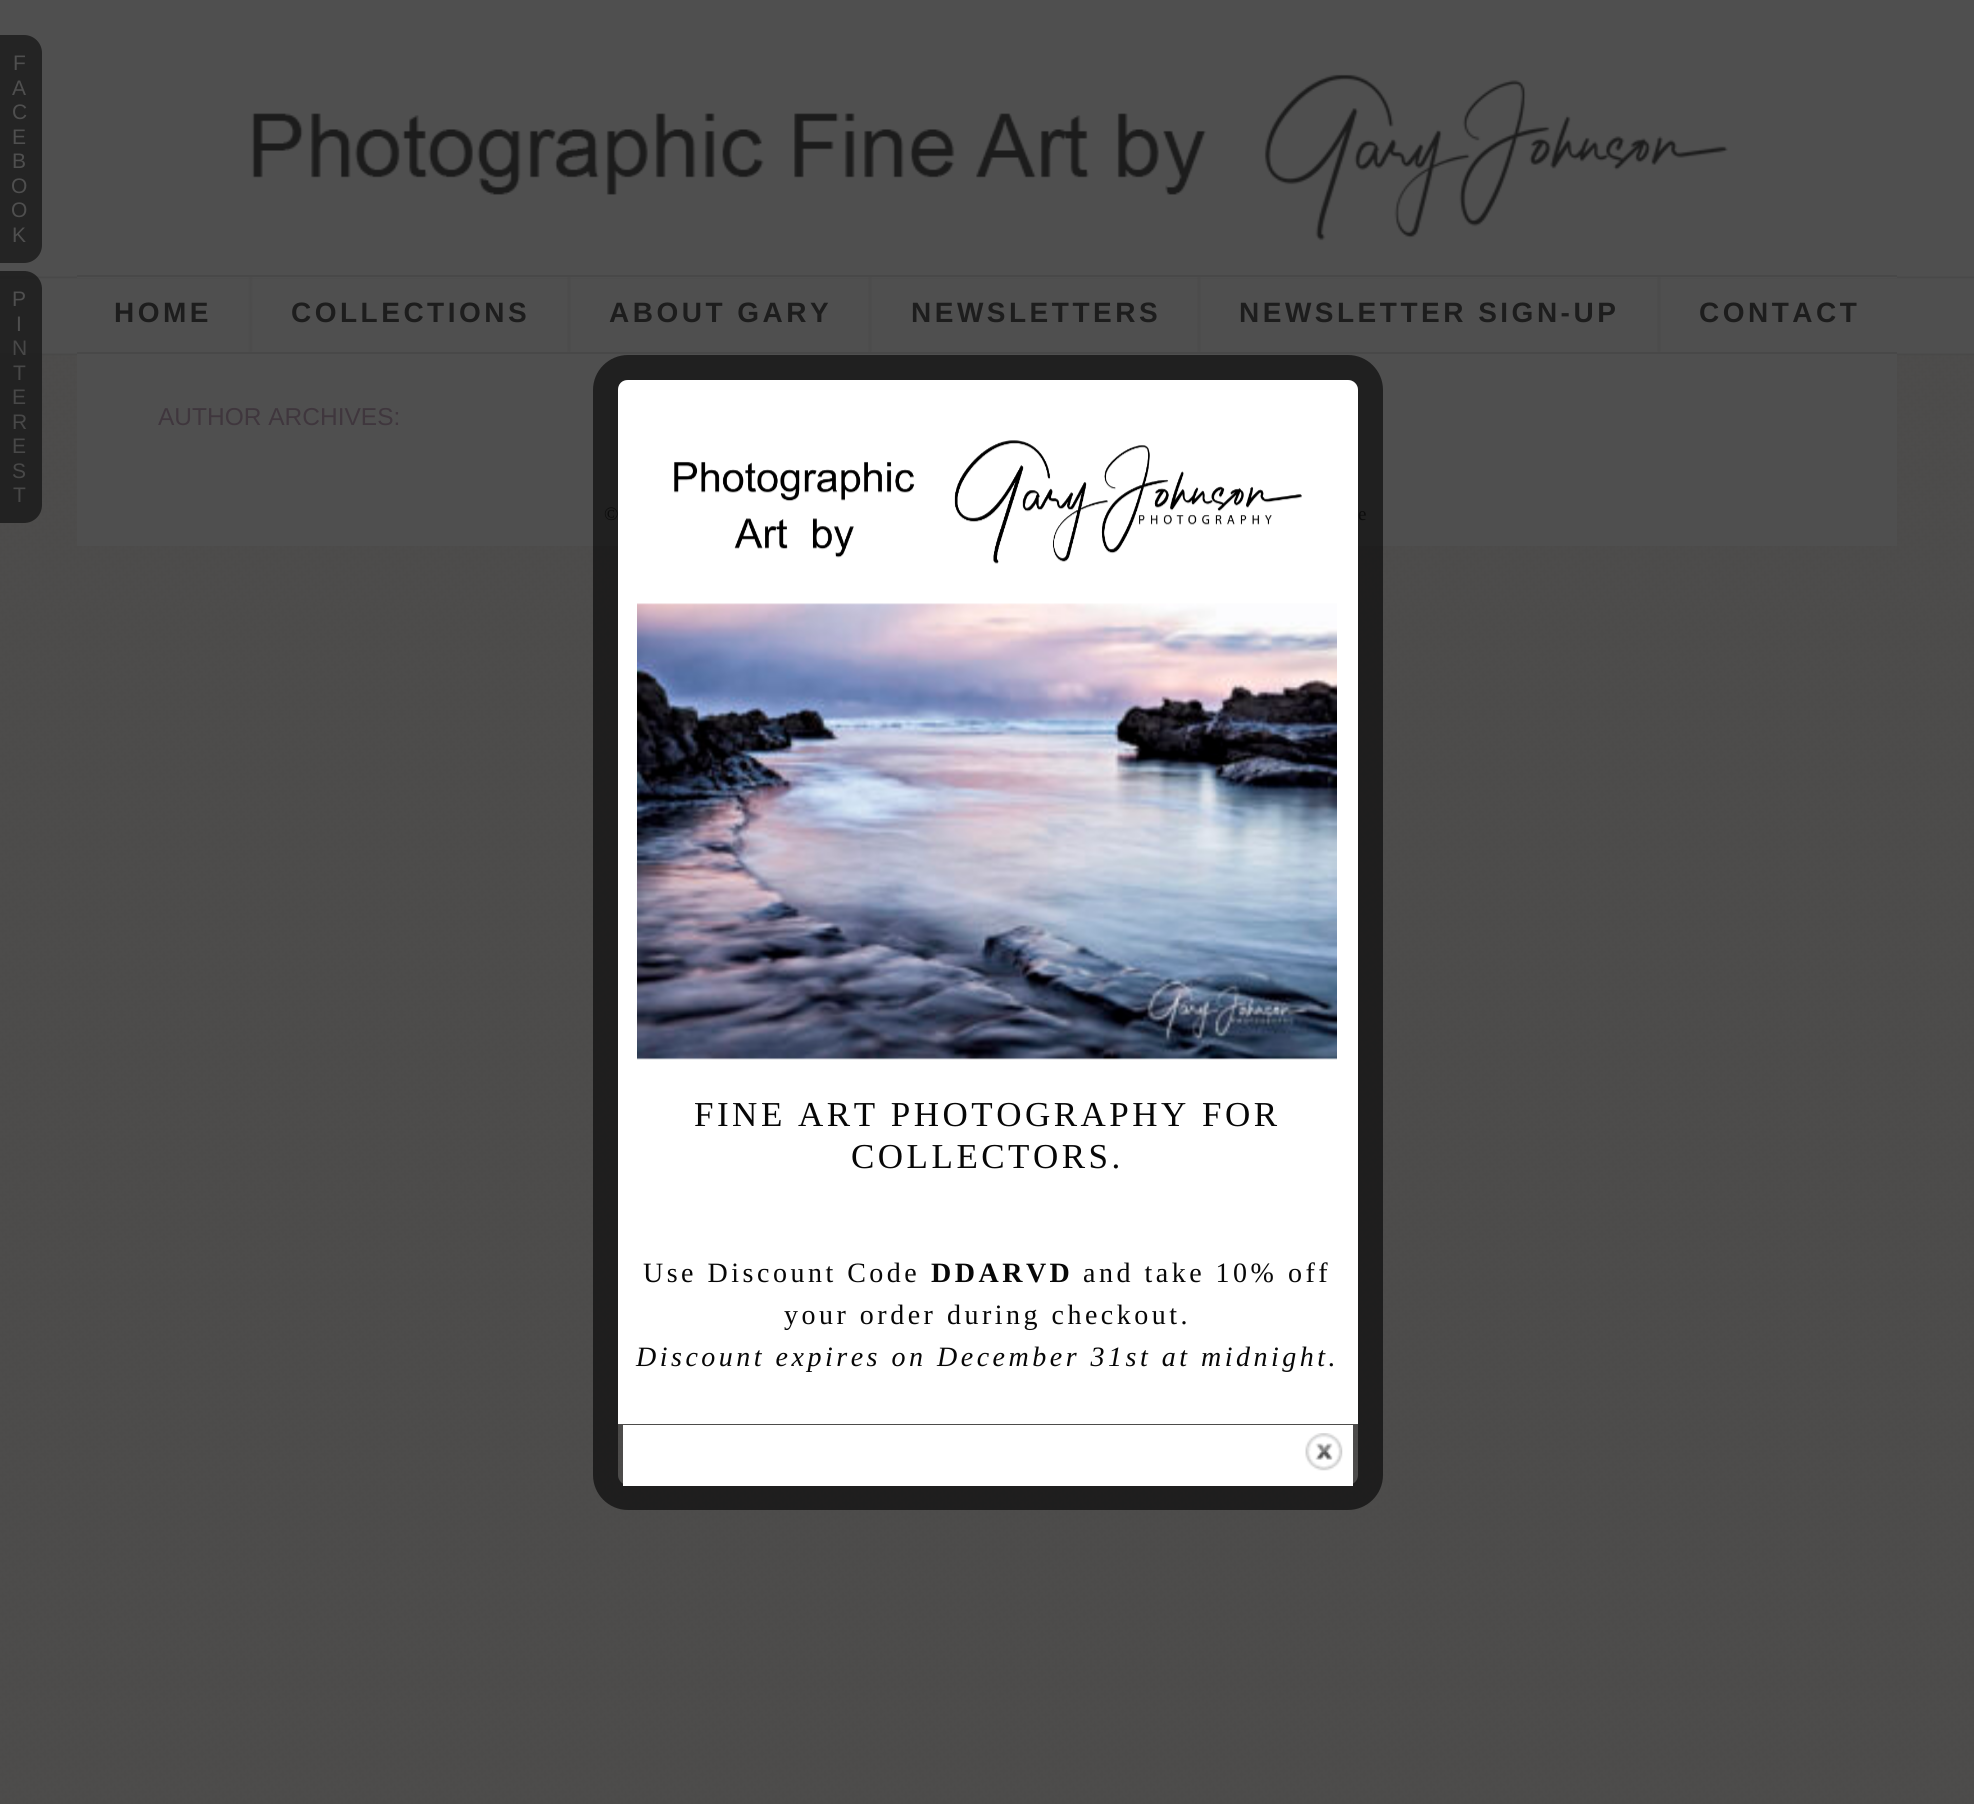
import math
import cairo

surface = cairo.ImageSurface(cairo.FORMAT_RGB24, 1974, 1804)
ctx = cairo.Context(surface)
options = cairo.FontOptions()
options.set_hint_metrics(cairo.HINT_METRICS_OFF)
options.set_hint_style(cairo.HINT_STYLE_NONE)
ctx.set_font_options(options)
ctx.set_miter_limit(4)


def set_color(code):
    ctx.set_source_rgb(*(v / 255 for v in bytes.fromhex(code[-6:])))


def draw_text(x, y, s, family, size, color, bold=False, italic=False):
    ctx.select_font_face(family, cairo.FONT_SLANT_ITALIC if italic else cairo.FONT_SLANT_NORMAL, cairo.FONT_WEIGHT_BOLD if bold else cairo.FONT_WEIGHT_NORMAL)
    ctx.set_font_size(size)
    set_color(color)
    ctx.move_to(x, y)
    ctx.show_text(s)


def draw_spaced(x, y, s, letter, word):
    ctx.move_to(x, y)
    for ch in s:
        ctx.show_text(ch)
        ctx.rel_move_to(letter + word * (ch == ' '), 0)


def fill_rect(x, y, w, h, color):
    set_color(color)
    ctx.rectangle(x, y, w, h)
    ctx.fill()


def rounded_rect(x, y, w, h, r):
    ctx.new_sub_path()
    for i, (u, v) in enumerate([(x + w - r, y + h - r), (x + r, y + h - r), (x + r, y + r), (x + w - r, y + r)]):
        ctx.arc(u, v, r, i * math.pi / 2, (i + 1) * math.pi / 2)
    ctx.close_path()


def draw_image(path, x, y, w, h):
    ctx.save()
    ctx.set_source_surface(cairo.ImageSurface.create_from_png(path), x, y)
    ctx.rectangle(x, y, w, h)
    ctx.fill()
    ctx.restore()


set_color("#ffffff")
ctx.paint()
draw_image("assets/img1.png", 0, 602, 1974, 1202)
draw_image("assets/img2.png", 0, 0, 1974, 602)
set_color("#242424")
ctx.new_path()
ctx.move_to(0, 35)
ctx.line_to(24, 35)
ctx.curve_to(34, 35, 42, 43, 42, 53)
ctx.line_to(42, 245)
ctx.curve_to(42, 255, 34, 263, 24, 263)
ctx.line_to(0, 263)
ctx.close_path()
ctx.fill()
ctx.select_font_face("Liberation Sans")
ctx.set_font_size(21)
set_color("#4f4f4f")
draw_spaced(13, 70, "F", 3.5, 0)
draw_spaced(12, 95, "A", 3.5, 0)
draw_spaced(12, 119, "C", 3.5, 0)
draw_spaced(12, 144, "E", 3.5, 0)
draw_spaced(12, 168, "B", 3.5, 0)
draw_spaced(11, 193, "O", 3.5, 0)
draw_spaced(11, 217, "O", 3.5, 0)
draw_spaced(12, 242, "K", 3.5, 0)
ctx.set_source_rgba(0.11, 0.11, 0.11, 0.85)
ctx.new_path()
ctx.move_to(0, 271)
ctx.line_to(24, 271)
ctx.curve_to(34, 271, 42, 279, 42, 289)
ctx.line_to(42, 505)
ctx.curve_to(42, 515, 34, 523, 24, 523)
ctx.line_to(0, 523)
ctx.close_path()
ctx.fill()
set_color("#4f4f4f")
draw_spaced(12, 306, "P", 3.5, 0)
draw_spaced(16, 331, "I", 3.5, 0)
set_color("#484848")
draw_spaced(12, 355, "N", 3.5, 0)
draw_spaced(13, 380, "T", 3.5, 0)
draw_spaced(12, 404, "E", 3.5, 0)
draw_spaced(12, 429, "R", 3.5, 0)
draw_spaced(12, 453, "E", 3.5, 0)
draw_spaced(12, 478, "S", 3.5, 0)
draw_spaced(13, 502, "T", 3.5, 0)
draw_image("assets/img3.png", 251, 74, 1477, 167)
fill_rect(77, 277, 1820, 1, "#4f4f4f")
fill_rect(77, 275, 1820, 2, "#484848")
fill_rect(77, 352, 1820, 2, "#484848")
ctx.select_font_face("Liberation Sans", cairo.FONT_SLANT_NORMAL, cairo.FONT_WEIGHT_BOLD)
ctx.set_font_size(28)
set_color("#1d1d1d")
draw_spaced(114, 322, "HOME", 3.5, 0)
draw_image("assets/img4.png", 248, 277, 5, 75)
draw_spaced(291, 322, "COLLECTIONS", 3.5, 0)
draw_image("assets/img5.png", 567, 277, 4, 75)
draw_spaced(609, 322, "ABOUT GARY", 3.5, 0)
draw_image("assets/img5.png", 868, 277, 4, 75)
draw_spaced(911, 322, "NEWSLETTERS", 3.5, 0)
draw_image("assets/img5.png", 1197, 277, 4, 75)
draw_spaced(1239, 322, "NEWSLETTER SIGN-UP", 3.5, 0)
draw_image("assets/img6.png", 1657, 277, 4, 75)
draw_spaced(1699, 322, "CONTACT", 3.5, 0)
fill_rect(77, 354, 1820, 192, "#4f4f4f")
draw_text(158, 425, "AUTHOR ARCHIVES:", "Liberation Sans", 24.5, "#3f363d")
ctx.select_font_face("Liberation Serif")
ctx.set_font_size(19)
set_color("#1d1d1d")
draw_spaced(604, 520, "©", 3.5, 0)
draw_spaced(1358, 520, "e", 3.5, 0)
rounded_rect(605.5, 367.5, 765, 1130, 22.5)
ctx.set_source_rgba(0, 0, 0, 0.6)
ctx.set_line_width(25)
ctx.stroke()
set_color("#ffffff")
ctx.new_path()
ctx.move_to(628, 380)
ctx.line_to(1348, 380)
ctx.curve_to(1353, 380, 1358, 384, 1358, 390)
ctx.line_to(1358, 1424)
ctx.line_to(618, 1424)
ctx.line_to(618, 390)
ctx.curve_to(618, 384, 622, 380, 628, 380)
ctx.close_path()
ctx.fill()
fill_rect(623, 1425, 730, 61, "#ffffff")
draw_image("assets/img7.png", 674, 440, 628, 124)
draw_image("assets/img8.png", 637, 603, 700, 457)
ctx.set_font_size(35)
set_color("#070707")
draw_spaced(694, 1126, "FINE ART PHOTOGRAPHY FOR", 3.5, 0)
draw_spaced(851, 1168, "COLLECTORS.", 3.5, 0)
ctx.set_font_size(28)
draw_spaced(643, 1282, "Use Discount Code", 3.5, 0)
ctx.select_font_face("Liberation Serif", cairo.FONT_SLANT_NORMAL, cairo.FONT_WEIGHT_BOLD)
draw_spaced(931, 1282, "DDARVD", 3.5, 0)
ctx.select_font_face("Liberation Serif")
draw_spaced(1083, 1282, "and take 10% off", 3.5, 0)
draw_spaced(784, 1324, "your order during checkout.", 3.5, 0)
ctx.select_font_face("Liberation Serif", cairo.FONT_SLANT_ITALIC)
draw_spaced(636, 1366, "Discount expires on December 31st at midnight.", 3.5, 0)
draw_image("assets/img9.png", 1305, 1433, 38, 38)
surface.write_to_png("output.png")
